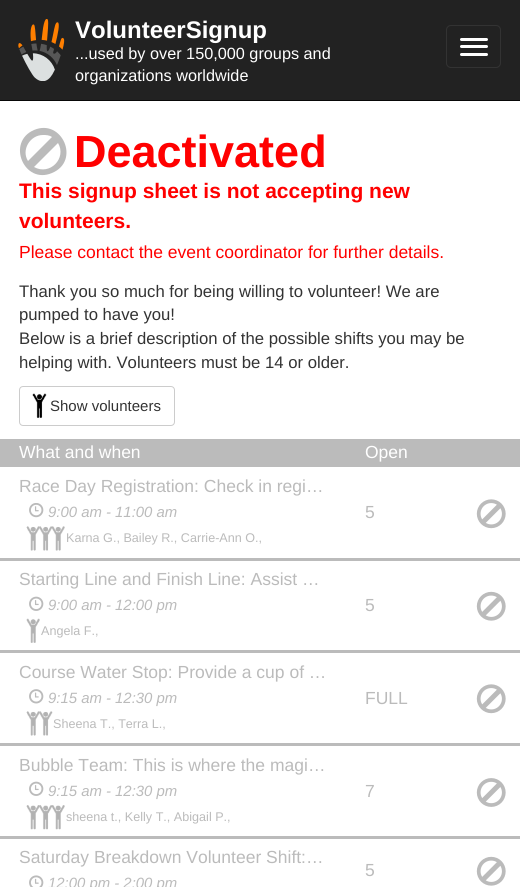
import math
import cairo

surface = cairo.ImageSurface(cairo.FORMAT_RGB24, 520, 887)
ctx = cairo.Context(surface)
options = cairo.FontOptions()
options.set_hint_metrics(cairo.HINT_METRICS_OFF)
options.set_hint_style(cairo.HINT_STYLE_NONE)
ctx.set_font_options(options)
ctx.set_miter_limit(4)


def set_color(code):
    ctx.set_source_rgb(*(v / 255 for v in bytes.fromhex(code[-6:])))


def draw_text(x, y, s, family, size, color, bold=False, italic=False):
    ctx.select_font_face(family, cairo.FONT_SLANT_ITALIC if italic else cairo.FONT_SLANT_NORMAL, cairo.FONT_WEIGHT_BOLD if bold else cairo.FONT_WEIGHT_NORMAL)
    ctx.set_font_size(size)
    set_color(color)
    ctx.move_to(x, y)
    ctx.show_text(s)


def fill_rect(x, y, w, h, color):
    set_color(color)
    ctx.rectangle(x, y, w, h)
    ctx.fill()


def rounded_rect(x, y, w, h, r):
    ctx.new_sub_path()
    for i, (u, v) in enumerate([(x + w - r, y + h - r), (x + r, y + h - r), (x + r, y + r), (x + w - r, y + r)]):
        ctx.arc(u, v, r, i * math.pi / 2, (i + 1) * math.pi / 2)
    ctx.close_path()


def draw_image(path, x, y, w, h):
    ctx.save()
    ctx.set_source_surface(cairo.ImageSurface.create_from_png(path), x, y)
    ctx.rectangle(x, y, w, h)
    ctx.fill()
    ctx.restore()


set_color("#ffffff")
ctx.paint()
fill_rect(0, 0, 520, 100, "#222222")
fill_rect(0, 100, 520, 1, "#080808")
draw_image("assets/img1.png", 18, 19, 47, 62)
draw_text(75, 38, "VolunteerSignup", "Liberation Sans", 24, "#ffffff", bold=True)
draw_text(75, 59, "...used by over 150,000 groups and", "Liberation Sans", 16.25, "#ffffff")
draw_text(75, 81, "organizations worldwide", "Liberation Sans", 16.25, "#ffffff")
rounded_rect(446.5, 25.5, 54, 42, 4.5)
set_color("#333333")
ctx.set_line_width(1)
ctx.stroke()
set_color("#ffffff")
rounded_rect(460, 38, 28, 3, 1.5)
ctx.fill()
rounded_rect(460, 45, 28, 3, 1.5)
ctx.fill()
rounded_rect(460, 53, 28, 3, 1.5)
ctx.fill()
set_color("#bbbbbb")
ctx.new_path()
ctx.move_to(34, 130)
ctx.curve_to(62, 118, 81, 161, 52, 173)
ctx.curve_to(24, 185, 6, 142, 34, 130)
ctx.close_path()
ctx.move_to(43, 135)
ctx.curve_to(30, 135, 21, 150, 28, 161)
ctx.line_to(52, 137)
ctx.curve_to(49, 135, 46, 135, 43, 135)
ctx.close_path()
ctx.move_to(58, 143)
ctx.line_to(34, 167)
ctx.curve_to(50, 176, 67, 158, 58, 143)
ctx.close_path()
ctx.fill()
draw_text(74, 167, "Deactivated", "Liberation Sans", 45, "#ff0000", bold=True)
draw_text(19, 198, "This signup sheet is not accepting new", "Liberation Sans", 21, "#ff0000", bold=True)
draw_text(19, 228, "volunteers.", "Liberation Sans", 21, "#ff0000", bold=True)
draw_text(19, 258, "Please contact the event coordinator for further details.", "Liberation Sans", 17.5, "#ff0000")
draw_text(19, 297, "Thank you so much for being willing to volunteer! We are", "Liberation Sans", 16.7, "#333333")
draw_text(19, 320, "pumped to have you!", "Liberation Sans", 16.7, "#333333")
draw_text(19, 344, "Below is a brief description of the possible shifts you may be", "Liberation Sans", 16.7, "#333333")
draw_text(19, 368, "helping with. Volunteers must be 14 or older.", "Liberation Sans", 16.7, "#333333")
rounded_rect(19.5, 386.5, 155, 39, 3.5)
set_color("#cccccc")
ctx.stroke()
draw_image("assets/img2.png", 32, 393, 15, 25)
draw_text(50, 411, "Show volunteers", "Liberation Sans", 15, "#333333")
fill_rect(0, 464, 520, 3, "#bbbbbb")
fill_rect(0, 439, 520, 25, "#bbbbbb")
draw_text(19, 458, "What and when", "Liberation Sans", 17.5, "#ffffff")
draw_text(365, 458, "Open", "Liberation Sans", 17.5, "#ffffff")
fill_rect(0, 558, 520, 3, "#bbbbbb")
draw_text(19, 492, "Race Day Registration: Check in regi…", "Liberation Sans", 17.5, "#bbbbbb")
draw_image("assets/img3.png", 29, 503, 15, 15)
draw_text(48, 517, "9:00 am - 11:00 am", "Liberation Sans", 14.9, "#bbbbbb", italic=True)
draw_image("assets/img4.png", 26, 526, 14, 25)
draw_image("assets/img5.png", 39, 526, 14, 25)
draw_image("assets/img6.png", 52, 526, 13, 25)
draw_text(66, 542, "Karna G., Bailey R., Carrie-Ann O.,", "Liberation Sans", 12.6, "#bbbbbb")
draw_text(365, 518, "5", "Liberation Sans", 17.5, "#bbbbbb")
draw_image("assets/img7.png", 476, 499, 30, 30)
fill_rect(0, 650, 520, 3, "#bbbbbb")
draw_text(19, 585, "Starting Line and Finish Line: Assist …", "Liberation Sans", 17.5, "#bbbbbb")
draw_image("assets/img8.png", 29, 596, 15, 15)
draw_text(48, 610, "9:00 am - 12:00 pm", "Liberation Sans", 14.9, "#bbbbbb", italic=True)
draw_image("assets/img9.png", 26, 618, 14, 25)
draw_text(41, 635, "Angela F.,", "Liberation Sans", 12.6, "#bbbbbb")
draw_text(365, 611, "5", "Liberation Sans", 17.5, "#bbbbbb")
draw_image("assets/img10.png", 476, 591, 30, 30)
fill_rect(0, 743, 520, 3, "#bbbbbb")
draw_text(19, 678, "Course Water Stop: Provide a cup of …", "Liberation Sans", 17.5, "#bbbbbb")
draw_image("assets/img11.png", 29, 689, 15, 15)
draw_text(48, 703, "9:15 am - 12:30 pm", "Liberation Sans", 14.9, "#bbbbbb", italic=True)
draw_image("assets/img12.png", 26, 711, 14, 25)
draw_image("assets/img13.png", 39, 711, 14, 25)
draw_text(53, 728, "Sheena T., Terra L.,", "Liberation Sans", 12.6, "#bbbbbb")
draw_text(365, 704, "FULL", "Liberation Sans", 17.5, "#bbbbbb")
draw_image("assets/img7.png", 476, 684, 30, 30)
fill_rect(0, 836, 520, 3, "#bbbbbb")
draw_text(19, 771, "Bubble Team: This is where the magi…", "Liberation Sans", 17.5, "#bbbbbb")
draw_image("assets/img8.png", 29, 781, 15, 15)
draw_text(48, 796, "9:15 am - 12:30 pm", "Liberation Sans", 14.9, "#bbbbbb", italic=True)
draw_image("assets/img14.png", 26, 805, 14, 25)
draw_image("assets/img15.png", 39, 805, 14, 25)
draw_image("assets/img16.png", 52, 805, 13, 25)
draw_text(66, 821, "sheena t., Kelly T., Abigail P.,", "Liberation Sans", 12.6, "#bbbbbb")
draw_text(365, 797, "7", "Liberation Sans", 17.5, "#bbbbbb")
draw_image("assets/img17.png", 476, 778, 30, 29)
draw_text(19, 863, "Saturday Breakdown Volunteer Shift:…", "Liberation Sans", 17.5, "#bbbbbb")
draw_image("assets/img18.png", 29, 875, 15, 12)
draw_text(48, 888, "12:00 pm - 2:00 pm", "Liberation Sans", 14.9, "#bbbbbb", italic=True)
draw_text(365, 876, "5", "Liberation Sans", 17.5, "#bbbbbb")
draw_image("assets/img10.png", 476, 856, 30, 30)
surface.write_to_png("output.png")
